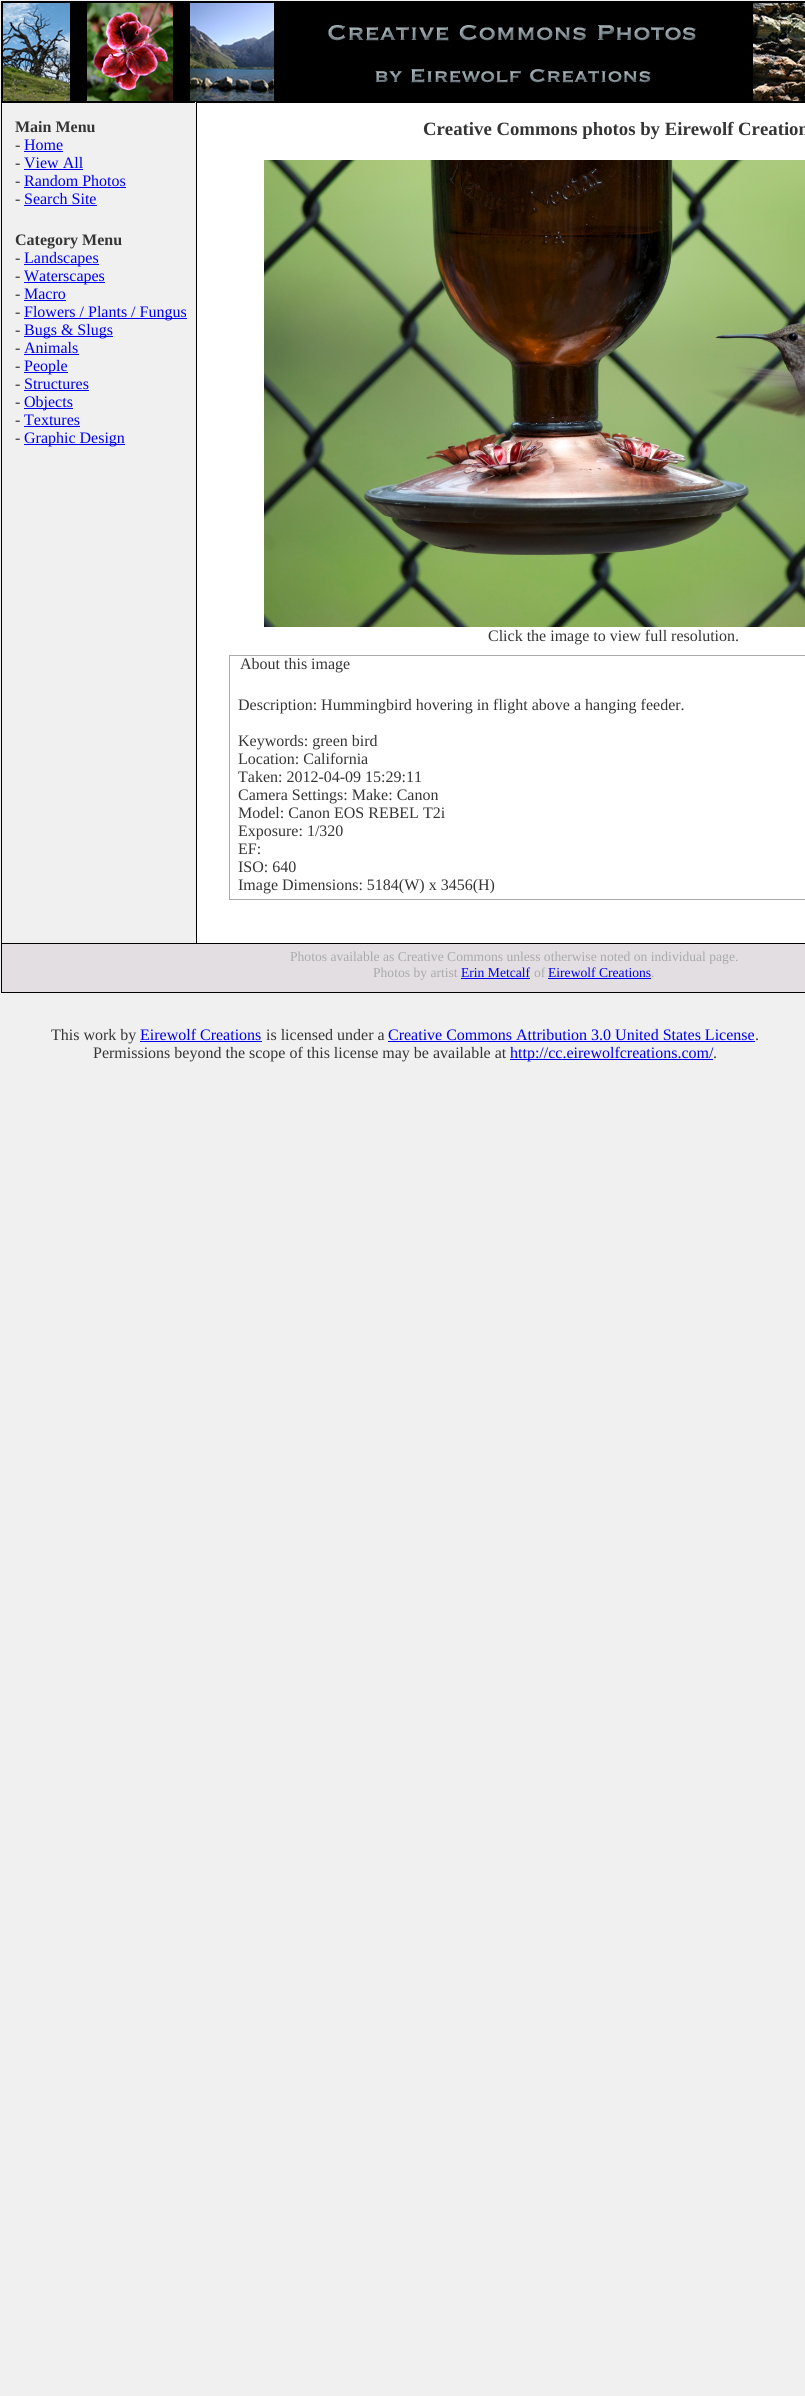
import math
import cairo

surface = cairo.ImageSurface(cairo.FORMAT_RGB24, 805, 2396)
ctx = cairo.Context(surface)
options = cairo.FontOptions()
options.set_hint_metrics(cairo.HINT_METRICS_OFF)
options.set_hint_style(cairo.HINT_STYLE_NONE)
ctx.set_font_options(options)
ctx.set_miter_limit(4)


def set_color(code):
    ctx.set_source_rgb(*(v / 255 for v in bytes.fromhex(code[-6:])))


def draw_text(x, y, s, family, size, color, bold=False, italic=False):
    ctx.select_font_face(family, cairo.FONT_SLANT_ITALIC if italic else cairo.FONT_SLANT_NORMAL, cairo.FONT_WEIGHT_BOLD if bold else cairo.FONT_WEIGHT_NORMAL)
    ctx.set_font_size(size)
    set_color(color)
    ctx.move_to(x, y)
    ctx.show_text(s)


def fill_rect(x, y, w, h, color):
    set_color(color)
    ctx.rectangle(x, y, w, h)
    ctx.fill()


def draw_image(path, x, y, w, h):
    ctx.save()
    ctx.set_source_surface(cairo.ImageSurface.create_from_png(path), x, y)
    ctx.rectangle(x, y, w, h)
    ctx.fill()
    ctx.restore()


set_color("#f0f0f0")
ctx.paint()
ctx.rectangle(1.5, 1.5, 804, 991)
set_color("#000000")
ctx.set_line_width(1)
ctx.stroke()
draw_image("assets/img1.png", 2, 2, 803, 100)
fill_rect(2, 102, 193, 1, "#000000")
draw_text(15, 132, "Main Menu", "Liberation Serif", 16, "#353535", bold=True)
draw_text(15, 150, "-", "Liberation Serif", 16, "#353535")
draw_text(24, 150, "Home", "Liberation Serif", 16, "#0000ee")
fill_rect(24, 151, 39, 1, "#0000ee")
draw_text(15, 168, "-", "Liberation Serif", 16, "#353535")
draw_text(24, 168, "View All", "Liberation Serif", 16, "#0000ee")
fill_rect(24, 169, 59, 1, "#0000ee")
draw_text(15, 186, "-", "Liberation Serif", 16, "#353535")
draw_text(24, 186, "Random Photos", "Liberation Serif", 16, "#0000ee")
fill_rect(24, 187, 102, 1, "#0000ee")
draw_text(15, 204, "-", "Liberation Serif", 16, "#353535")
draw_text(24, 204, "Search Site", "Liberation Serif", 16, "#0000ee")
fill_rect(24, 205, 73, 1, "#0000ee")
draw_text(15, 245, "Category Menu", "Liberation Serif", 16, "#353535", bold=True)
draw_text(15, 263, "-", "Liberation Serif", 16, "#353535")
fill_rect(24, 264, 75, 1, "#0000ee")
draw_text(24, 263, "Landscapes", "Liberation Serif", 16, "#0000ee")
draw_text(15, 281, "-", "Liberation Serif", 16, "#353535")
fill_rect(24, 282, 81, 1, "#0000ee")
draw_text(24, 281, "Waterscapes", "Liberation Serif", 16, "#0000ee")
draw_text(15, 299, "-", "Liberation Serif", 16, "#353535")
draw_text(24, 299, "Macro", "Liberation Serif", 16, "#0000ee")
fill_rect(24, 300, 42, 1, "#0000ee")
draw_text(15, 317, "-", "Liberation Serif", 16, "#353535")
fill_rect(24, 318, 163, 1, "#0000ee")
draw_text(24, 317, "Flowers / Plants / Fungus", "Liberation Serif", 16, "#0000ee")
draw_text(15, 335, "-", "Liberation Serif", 16, "#353535")
fill_rect(24, 336, 89, 1, "#0000ee")
draw_text(24, 335, "Bugs & Slugs", "Liberation Serif", 16, "#0000ee")
draw_text(15, 353, "-", "Liberation Serif", 16, "#353535")
draw_text(24, 353, "Animals", "Liberation Serif", 16, "#0000ee")
fill_rect(24, 354, 55, 1, "#0000ee")
draw_text(15, 371, "-", "Liberation Serif", 16, "#353535")
fill_rect(24, 372, 44, 1, "#0000ee")
draw_text(24, 371, "People", "Liberation Serif", 16, "#0000ee")
draw_text(15, 389, "-", "Liberation Serif", 16, "#353535")
draw_text(24, 389, "Structures", "Liberation Serif", 16, "#0000ee")
fill_rect(24, 390, 65, 1, "#0000ee")
draw_text(15, 407, "-", "Liberation Serif", 16, "#353535")
fill_rect(24, 408, 49, 1, "#0000ee")
draw_text(24, 407, "Objects", "Liberation Serif", 16, "#0000ee")
draw_text(15, 425, "-", "Liberation Serif", 16, "#353535")
draw_text(24, 425, "Textures", "Liberation Serif", 16, "#0000ee")
fill_rect(24, 426, 56, 1, "#0000ee")
draw_text(15, 443, "-", "Liberation Serif", 16, "#353535")
fill_rect(24, 444, 101, 1, "#0000ee")
draw_text(24, 443, "Graphic Design", "Liberation Serif", 16, "#0000ee")
fill_rect(197, 103, 608, 840, "#ffffff")
fill_rect(196, 102, 609, 1, "#000000")
fill_rect(196, 102, 1, 841, "#000000")
draw_text(423, 135, "Creative Commons photos by Eirewolf Creation", "Liberation Serif", 18.75, "#353535", bold=True)
draw_image("assets/img2.png", 264, 160, 541, 467)
draw_text(488, 641, "Click the image to view full resolution.", "Liberation Serif", 16, "#353535")
ctx.rectangle(229.5, 655.5, 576, 244)
set_color("#aaaaaa")
ctx.stroke()
draw_text(240, 669, "About this image", "Liberation Serif", 16, "#353535")
draw_text(238, 710, "Description: Hummingbird hovering in flight above a hanging feeder.", "Liberation Serif", 16, "#353535")
draw_text(238, 746, "Keywords: green bird", "Liberation Serif", 16, "#353535")
draw_text(238, 764, "Location: California", "Liberation Serif", 16, "#353535")
draw_text(238, 782, "Taken: 2012-04-09 15:29:11", "Liberation Serif", 16, "#353535")
draw_text(238, 800, "Camera Settings: Make: Canon", "Liberation Serif", 16, "#353535")
draw_text(238, 818, "Model: Canon EOS REBEL T2i", "Liberation Serif", 16, "#353535")
draw_text(238, 836, "Exposure: 1/320", "Liberation Serif", 16, "#353535")
draw_text(238, 854, "EF:", "Liberation Serif", 16, "#353535")
draw_text(238, 872, "ISO: 640", "Liberation Serif", 16, "#353535")
draw_text(238, 890, "Image Dimensions: 5184(W) x 3456(H)", "Liberation Serif", 16, "#353535")
fill_rect(2, 944, 803, 48, "#e2dee2")
fill_rect(2, 943, 803, 1, "#000000")
draw_text(290, 961, "Photos available as Creative Commons unless otherwise noted on individual page.", "Liberation Serif", 13.6, "#aaaaaa")
draw_text(373, 977, "Photos by artist", "Liberation Serif", 13.6, "#aaaaaa")
draw_text(461, 977, "Erin Metcalf", "Liberation Serif", 13.6, "#0000ee")
fill_rect(461, 978, 69, 1, "#0000ee")
draw_text(534, 977, "of", "Liberation Serif", 13.6, "#aaaaaa")
draw_text(548, 977, "Eirewolf Creations", "Liberation Serif", 13.6, "#0000ee")
fill_rect(548, 978, 103, 1, "#0000ee")
draw_text(651, 977, ".", "Liberation Serif", 13.6, "#aaaaaa")
draw_text(51, 1040, "This work by", "Liberation Serif", 16, "#353535")
draw_text(140, 1040, "Eirewolf Creations", "Liberation Serif", 16, "#0000ee")
fill_rect(140, 1041, 122, 1, "#0000ee")
draw_text(266, 1040, "is licensed under a", "Liberation Serif", 16, "#353535")
draw_text(388, 1040, "Creative Commons Attribution 3.0 United States License", "Liberation Serif", 16, "#0000ee")
fill_rect(388, 1041, 367, 1, "#0000ee")
draw_text(755, 1040, ".", "Liberation Serif", 16, "#353535")
draw_text(93, 1058, "Permissions beyond the scope of this license may be available at", "Liberation Serif", 16, "#353535")
fill_rect(510, 1059, 203, 1, "#0000ee")
draw_text(510, 1058, "http://cc.eirewolfcreations.com/", "Liberation Serif", 16, "#0000ee")
draw_text(713, 1058, ".", "Liberation Serif", 16, "#353535")
surface.write_to_png("output.png")
